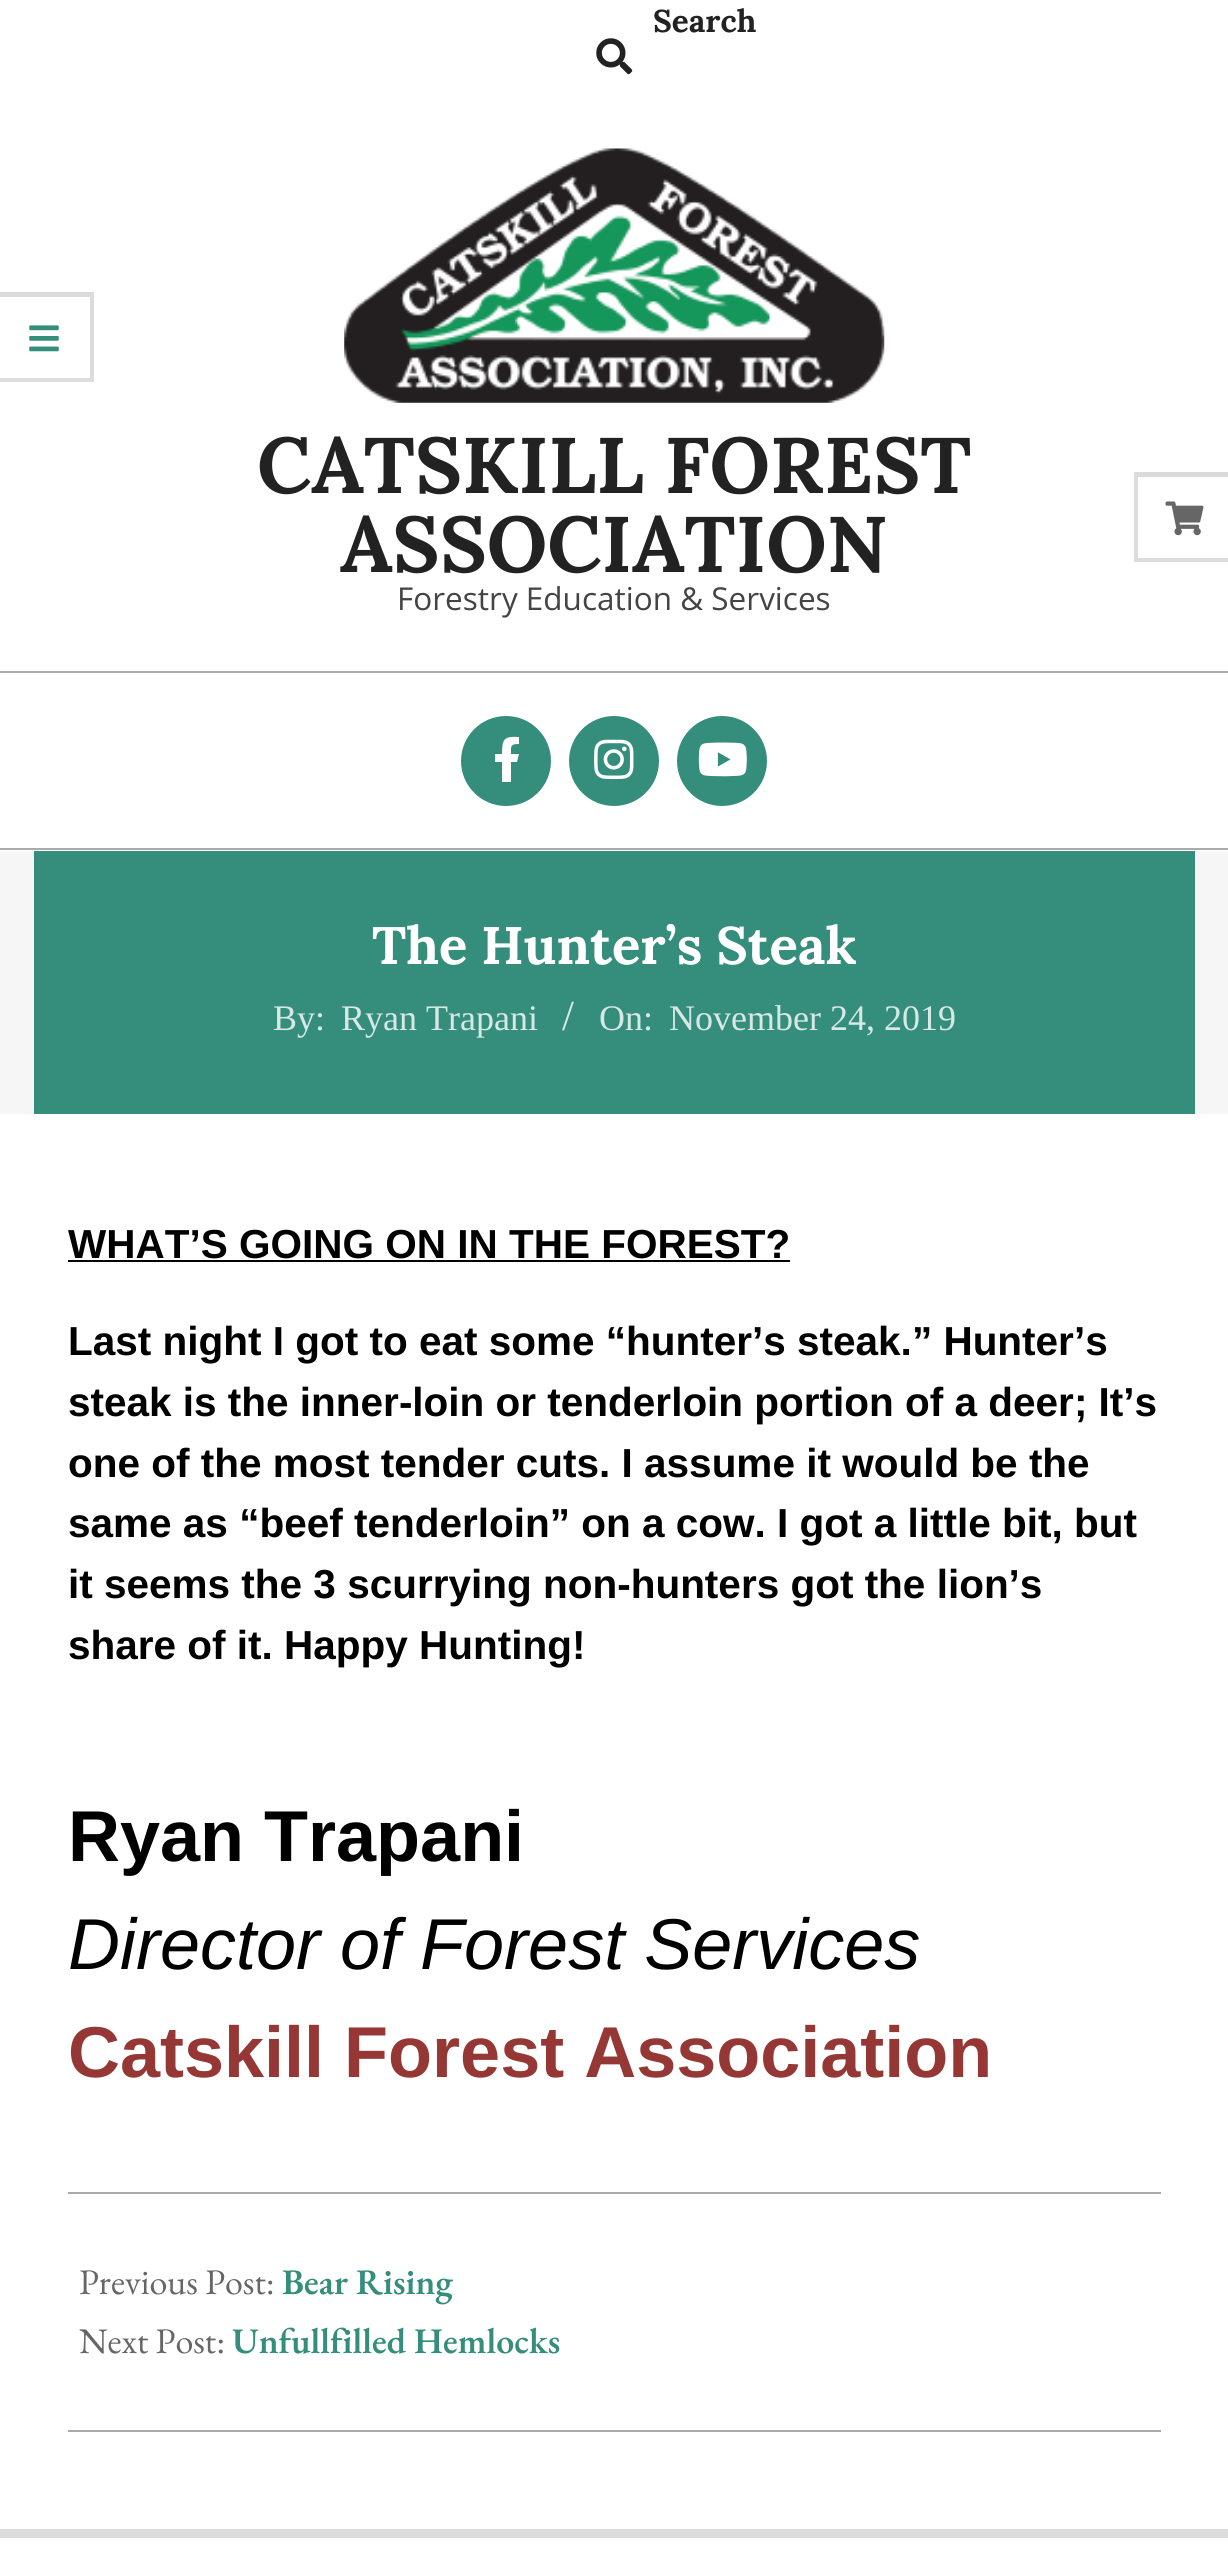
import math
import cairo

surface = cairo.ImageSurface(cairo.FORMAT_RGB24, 1228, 2549)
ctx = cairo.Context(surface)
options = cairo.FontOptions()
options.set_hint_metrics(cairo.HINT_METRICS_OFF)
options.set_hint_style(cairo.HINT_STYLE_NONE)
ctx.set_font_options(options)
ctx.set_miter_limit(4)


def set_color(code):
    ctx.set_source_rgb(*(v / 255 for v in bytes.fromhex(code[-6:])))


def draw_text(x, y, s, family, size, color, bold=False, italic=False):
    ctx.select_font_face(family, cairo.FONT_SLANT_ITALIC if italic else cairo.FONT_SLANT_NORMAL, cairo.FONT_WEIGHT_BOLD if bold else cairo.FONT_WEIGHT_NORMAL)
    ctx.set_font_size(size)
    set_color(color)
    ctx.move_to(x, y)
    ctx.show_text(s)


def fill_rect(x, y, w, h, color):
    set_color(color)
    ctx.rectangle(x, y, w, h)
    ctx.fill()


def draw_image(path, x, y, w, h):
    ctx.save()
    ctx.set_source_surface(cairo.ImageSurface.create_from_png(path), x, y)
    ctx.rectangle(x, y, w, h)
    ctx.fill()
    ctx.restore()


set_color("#ffffff")
ctx.paint()
draw_text(653, 32, "Search", "Lora", 31.5, "#222222", bold=True)
draw_image("assets/img1.png", 596, 38, 37, 37)
set_color("#dbdbdb")
ctx.new_path()
ctx.move_to(0, 292)
ctx.line_to(94, 292)
ctx.line_to(90, 297)
ctx.line_to(0, 297)
ctx.close_path()
ctx.fill()
ctx.set_source_rgba(0, 0, 0, 0.14)
ctx.new_path()
ctx.move_to(94, 292)
ctx.line_to(94, 382)
ctx.line_to(90, 378)
ctx.line_to(90, 297)
ctx.close_path()
ctx.fill()
ctx.new_path()
ctx.move_to(94, 382)
ctx.line_to(0, 382)
ctx.line_to(0, 378)
ctx.line_to(90, 378)
ctx.close_path()
ctx.fill()
draw_image("assets/img2.png", 29, 325, 30, 27)
fill_rect(0, 848, 1228, 2, "#ababab")
draw_image("assets/img3.png", 344, 148, 541, 255)
draw_text(257, 493, "CATSKILL FOREST", "Lora", 78.75, "#222222", bold=True)
draw_text(340, 572, "ASSOCIATION", "Lora", 78.75, "#222222", bold=True)
draw_text(397, 610, "Forestry Education & Services", "Open Sans", 31.5, "#444444")
fill_rect(0, 671, 1228, 2, "#ababab")
set_color("#358d7c")
ctx.new_path()
ctx.arc(506, 761, 45, 0, 2 * math.pi)
ctx.fill()
set_color("#ffffff")
ctx.new_path()
ctx.move_to(517, 762)
ctx.line_to(511, 762)
ctx.line_to(511, 782)
ctx.line_to(502, 782)
ctx.line_to(502, 762)
ctx.line_to(495, 762)
ctx.line_to(495, 754)
ctx.line_to(502, 754)
ctx.curve_to(502, 739, 504, 736, 519, 737)
ctx.line_to(519, 744)
ctx.curve_to(510, 744, 511, 746, 511, 754)
ctx.line_to(519, 754)
ctx.close_path()
ctx.fill()
set_color("#358d7c")
ctx.arc(614, 761, 45, 0, 2 * math.pi)
ctx.fill()
draw_image("assets/img4.png", 594, 739, 40, 41)
ctx.arc(722, 761, 45, 0, 2 * math.pi)
ctx.fill()
draw_image("assets/img5.png", 698, 742, 49, 35)
fill_rect(0, 851, 1228, 263, "#f6f6f6")
fill_rect(34, 851, 1161, 263, "#358d7c")
draw_text(372, 964, "The Hunter’s Steak", "Lora", 52.75, "#ffffff", bold=True)
draw_text(273, 1030, "By:", "Liberation Serif", 36, "#d7e8e5")
draw_text(341, 1030, "Ryan Trapani", "Liberation Serif", 36, "#d7e8e5")
draw_text(562, 1030, "/", "Liberation Serif", 43, "#d7e8e5")
draw_text(599, 1030, "On:", "Liberation Serif", 36, "#d7e8e5")
draw_text(669, 1030, "November 24, 2019", "Liberation Serif", 36, "#d7e8e5")
fill_rect(68, 2192, 1093, 2, "#ababab")
draw_text(68, 1258, "WHAT’S GOING ON IN THE FOREST?", "Liberation Sans", 40.5, "#000000", bold=True)
fill_rect(68, 1260, 722, 2, "#000000")
draw_text(68, 1355, "Last night I got to eat some “hunter’s steak.” Hunter’s", "Liberation Sans", 40.5, "#000000", bold=True)
draw_text(68, 1416, "steak is the inner-loin or tenderloin portion of a deer; It’s", "Liberation Sans", 40.5, "#000000", bold=True)
draw_text(68, 1477, "one of the most tender cuts. I assume it would be the", "Liberation Sans", 40.5, "#000000", bold=True)
draw_text(68, 1537, "same as “beef tenderloin” on a cow. I got a little bit, but", "Liberation Sans", 40.5, "#000000", bold=True)
draw_text(68, 1598, "it seems the 3 scurrying non-hunters got the lion’s", "Liberation Sans", 40.5, "#000000", bold=True)
draw_text(68, 1659, "share of it. Happy Hunting!", "Liberation Sans", 40.5, "#000000", bold=True)
draw_text(68, 1861, "Ryan Trapani", "Liberation Sans", 72, "#000000", bold=True)
draw_text(68, 1969, "Director of Forest Services", "Liberation Sans", 72, "#000000", italic=True)
draw_text(68, 2077, "Catskill Forest Association", "Liberation Sans", 72, "#953735", bold=True)
fill_rect(68, 2430, 1093, 2, "#ababab")
draw_text(79, 2294, "Previous Post:", "EB Garamond", 36, "#666666")
draw_text(282, 2294, "Bear Rising", "EB Garamond SemiBold", 36, "#358d7c")
draw_text(79, 2353, "Next Post:", "EB Garamond", 36, "#666666")
draw_text(232, 2353, "Unfullfilled Hemlocks", "EB Garamond SemiBold", 36, "#358d7c")
fill_rect(0, 2529, 1228, 9, "#dbdbdb")
ctx.new_path()
ctx.move_to(1134, 472)
ctx.line_to(1228, 472)
ctx.line_to(1228, 477)
ctx.line_to(1138, 477)
ctx.close_path()
ctx.fill()
ctx.new_path()
ctx.move_to(1228, 562)
ctx.line_to(1134, 562)
ctx.line_to(1138, 558)
ctx.line_to(1228, 558)
ctx.close_path()
ctx.fill()
ctx.set_source_rgba(0, 0, 0, 0.14)
ctx.new_path()
ctx.move_to(1134, 562)
ctx.line_to(1134, 472)
ctx.line_to(1138, 477)
ctx.line_to(1138, 558)
ctx.close_path()
ctx.fill()
draw_image("assets/img6.png", 1165, 501, 39, 35)
surface.write_to_png("output.png")
